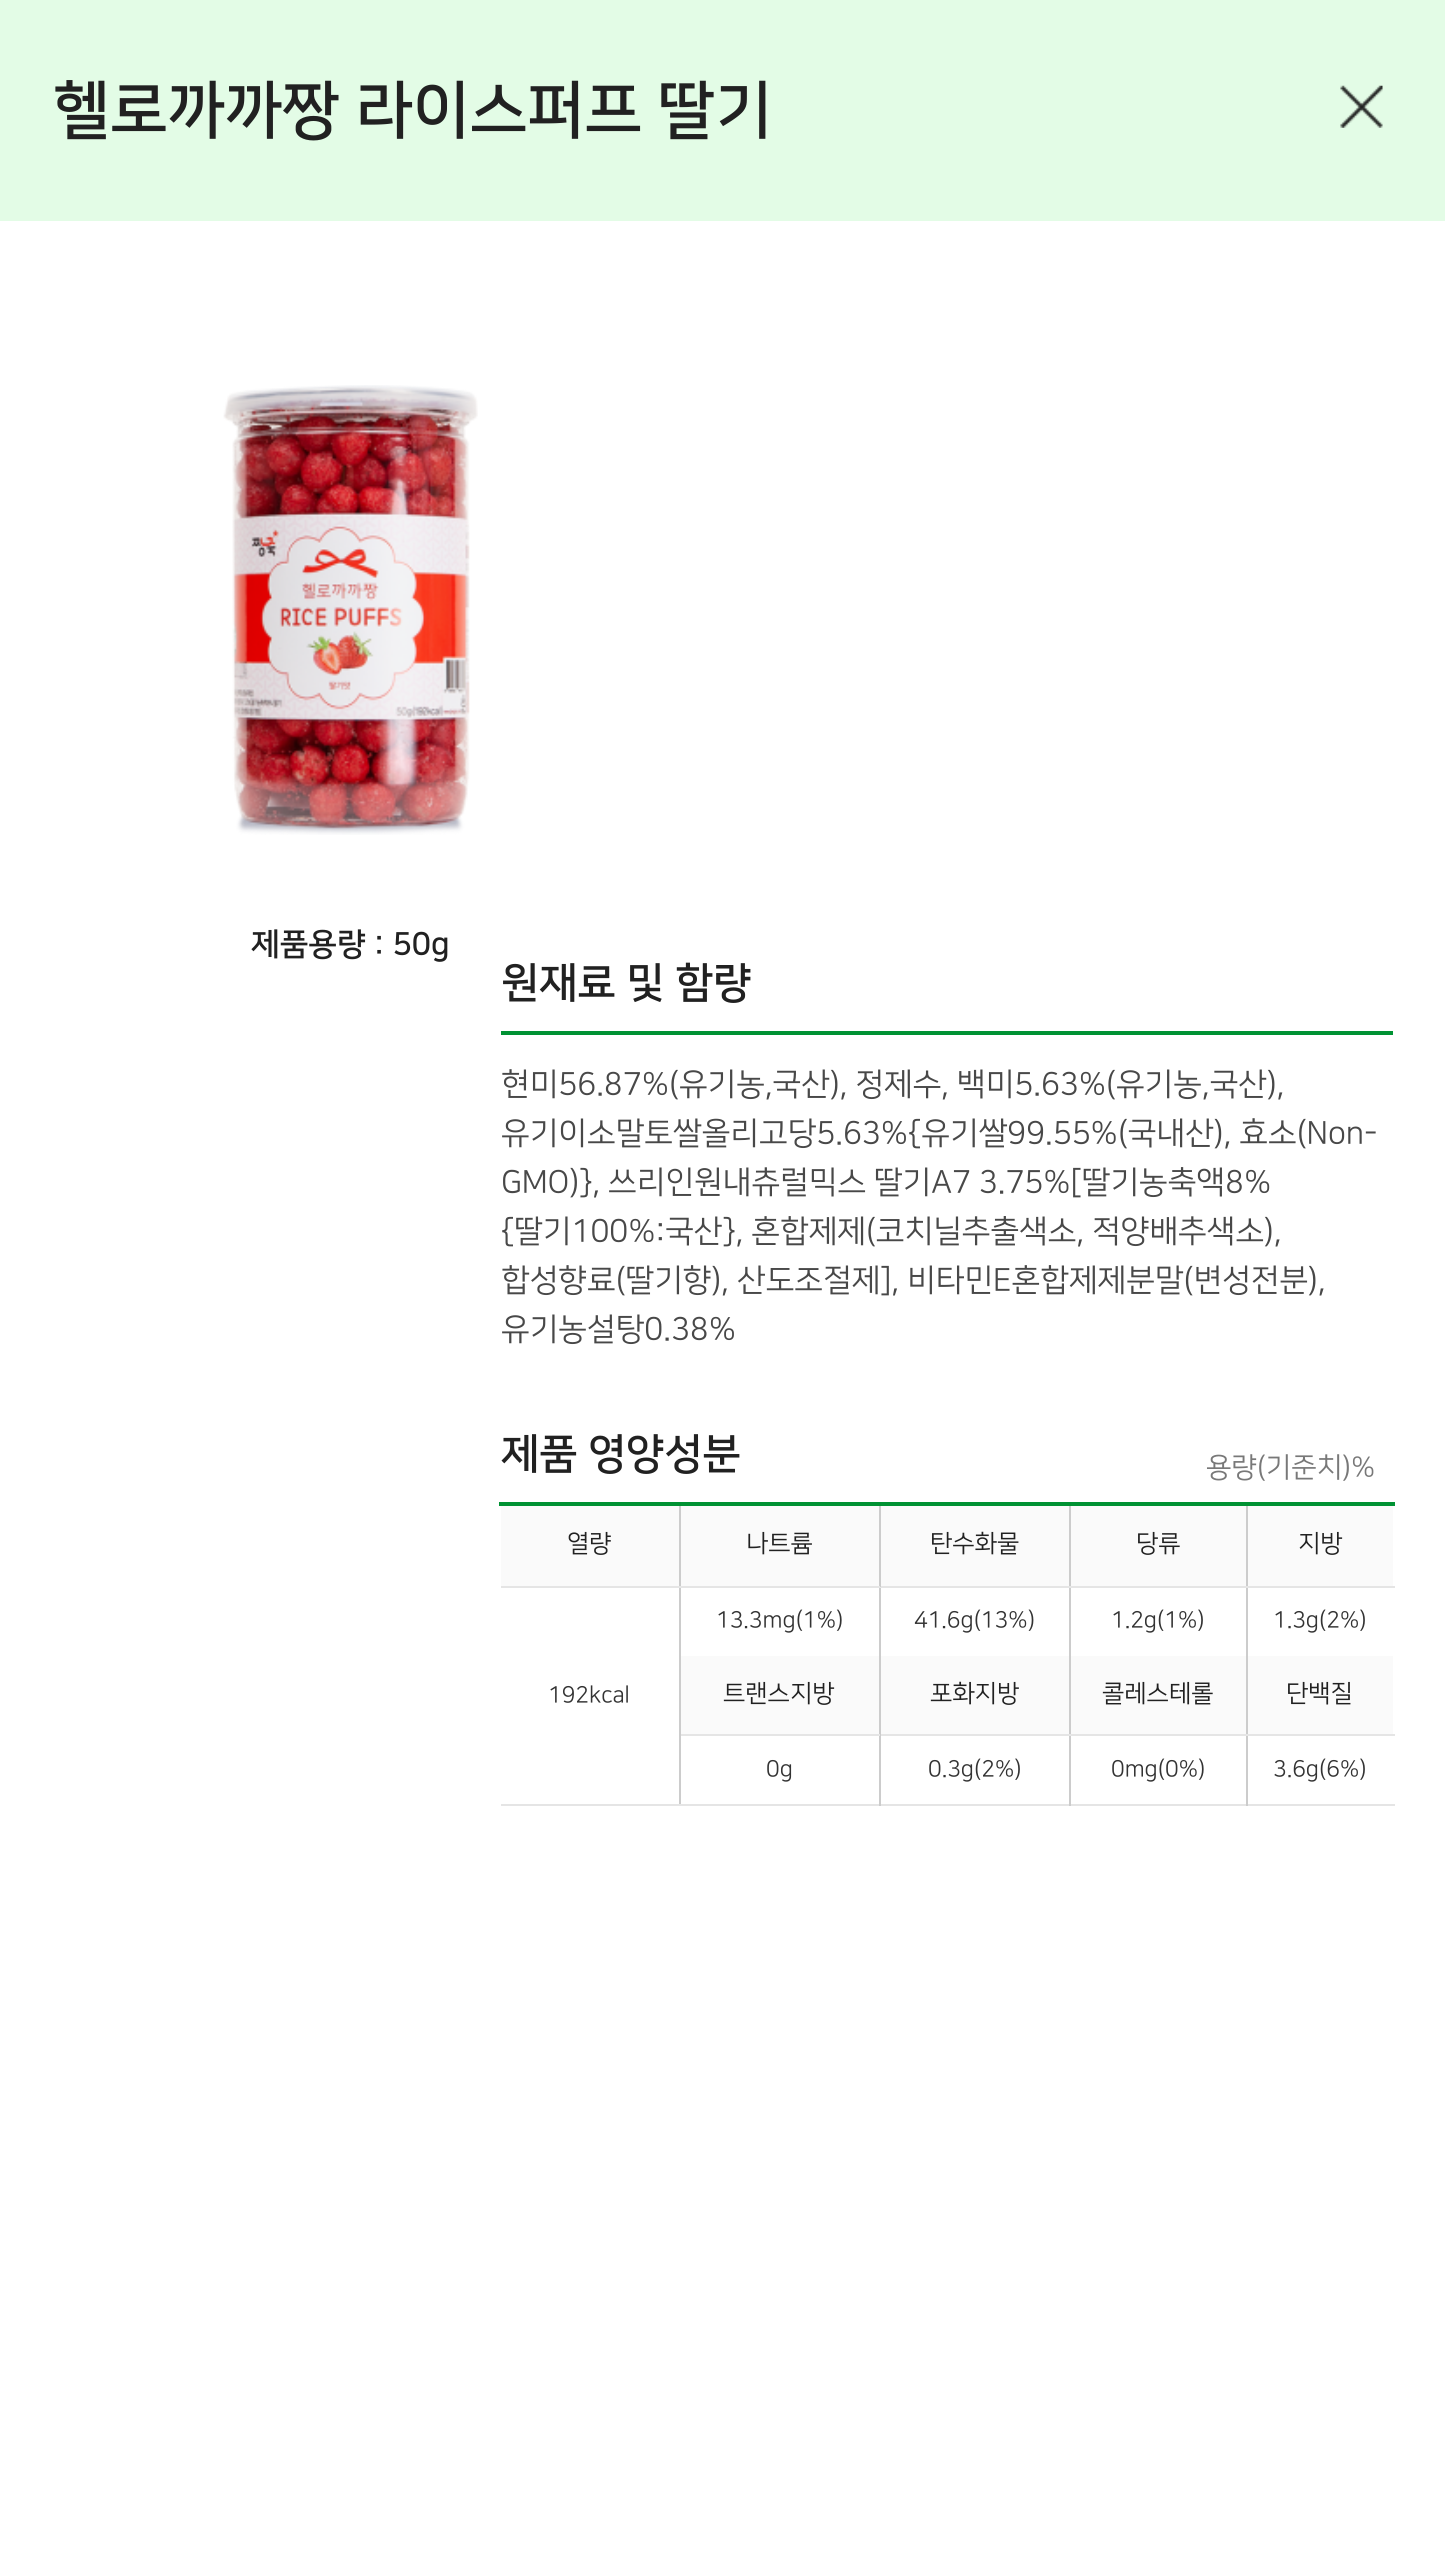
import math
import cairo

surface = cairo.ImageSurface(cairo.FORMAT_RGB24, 1445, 2549)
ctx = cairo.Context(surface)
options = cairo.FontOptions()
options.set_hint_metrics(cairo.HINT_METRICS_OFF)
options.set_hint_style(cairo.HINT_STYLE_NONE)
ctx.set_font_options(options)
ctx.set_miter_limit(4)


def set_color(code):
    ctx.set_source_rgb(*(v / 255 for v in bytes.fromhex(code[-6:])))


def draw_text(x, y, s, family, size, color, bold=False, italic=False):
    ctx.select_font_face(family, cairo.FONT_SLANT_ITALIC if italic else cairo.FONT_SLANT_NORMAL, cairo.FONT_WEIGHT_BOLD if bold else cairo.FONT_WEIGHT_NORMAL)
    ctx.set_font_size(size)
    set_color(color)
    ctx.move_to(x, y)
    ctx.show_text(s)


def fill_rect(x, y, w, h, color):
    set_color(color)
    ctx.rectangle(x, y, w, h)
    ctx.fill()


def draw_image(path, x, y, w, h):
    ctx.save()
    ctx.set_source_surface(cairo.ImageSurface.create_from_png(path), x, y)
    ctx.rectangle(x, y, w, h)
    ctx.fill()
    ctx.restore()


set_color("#ffffff")
ctx.paint()
fill_rect(0, 0, 1445, 221, "#e3fce6")
draw_text(53, 130, "헬로까까짱 라이스퍼프 딸기", "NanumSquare", 63, "#212121", bold=True)
draw_image("assets/img1.png", 1340, 85, 43, 43)
draw_image("assets/img2.png", 223, 385, 255, 450)
draw_text(251, 954, "제품용량 : 50g", "NanumSquare", 31.5, "#212121", bold=True)
draw_text(501, 996, "원재료 및 함량", "NanumSquare", 42, "#212121", bold=True)
fill_rect(501, 1031, 892, 4, "#009233")
draw_text(501, 1094, "현미56.87%(유기농,국산), 정제수, 백미5.63%(유기농,국산),", "NanumSquare", 31.5, "#484848")
draw_text(501, 1143, "유기이소말토쌀올리고당5.63%{유기쌀99.55%(국내산), 효소(Non-", "NanumSquare", 31.5, "#484848")
draw_text(501, 1192, "GMO)}, 쓰리인원내츄럴믹스 딸기A7 3.75%[딸기농축액8%", "NanumSquare", 31.5, "#484848")
draw_text(501, 1241, "{딸기100%:국산}, 혼합제제(코치닐추출색소, 적양배추색소),", "NanumSquare", 31.5, "#484848")
draw_text(501, 1290, "합성향료(딸기향), 산도조절제], 비타민E혼합제제분말(변성전분),", "NanumSquare", 31.5, "#484848")
draw_text(501, 1339, "유기농설탕0.38%", "NanumSquare", 31.5, "#484848")
draw_text(501, 1467, "제품 영양성분", "NanumSquare", 42, "#212121", bold=True)
draw_text(1206, 1476, "용량(기준치)%", "NanumSquare", 28, "#787878")
fill_rect(681, 1804, 714, 2, "#e5e5e5")
fill_rect(1246, 1734, 2, 72, "#cccccc")
fill_rect(1246, 1734, 149, 2, "#e5e5e5")
fill_rect(1246, 1586, 2, 150, "#cccccc")
fill_rect(1246, 1586, 149, 2, "#e5e5e5")
fill_rect(1246, 1503, 2, 84, "#cccccc")
fill_rect(1069, 1734, 2, 72, "#cccccc")
fill_rect(1069, 1734, 179, 2, "#e5e5e5")
fill_rect(1069, 1586, 2, 150, "#cccccc")
fill_rect(1069, 1586, 179, 2, "#e5e5e5")
fill_rect(1069, 1503, 2, 84, "#cccccc")
fill_rect(879, 1734, 2, 72, "#cccccc")
fill_rect(879, 1734, 192, 2, "#e5e5e5")
fill_rect(879, 1586, 2, 150, "#cccccc")
fill_rect(879, 1586, 192, 2, "#e5e5e5")
fill_rect(879, 1503, 2, 84, "#cccccc")
fill_rect(679, 1734, 201, 2, "#e5e5e5")
fill_rect(679, 1586, 2, 220, "#cccccc")
fill_rect(679, 1586, 201, 2, "#e5e5e5")
fill_rect(679, 1503, 2, 84, "#cccccc")
fill_rect(499, 1502, 896, 4, "#009233")
fill_rect(501, 1506, 178, 80, "#fafafa")
fill_rect(501, 1586, 180, 2, "#e5e5e5")
draw_text(567, 1551, "열량", "NanumSquare", 24.5, "#212121")
fill_rect(681, 1506, 198, 80, "#fafafa")
draw_text(746, 1551, "나트륨", "NanumSquare", 24.5, "#212121")
fill_rect(881, 1506, 188, 80, "#fafafa")
draw_text(930, 1551, "탄수화물", "NanumSquare", 24.5, "#212121")
fill_rect(1071, 1506, 175, 80, "#fafafa")
draw_text(1136, 1551, "당류", "NanumSquare", 24.5, "#212121")
fill_rect(1248, 1506, 145, 80, "#fafafa")
draw_text(1298, 1551, "지방", "NanumSquare", 24.5, "#212121")
draw_text(716, 1627, "13.3mg(1%)", "NanumSquare", 22.75, "#333333")
draw_text(914, 1627, "41.6g(13%)", "NanumSquare", 22.75, "#333333")
draw_text(1111, 1627, "1.2g(1%)", "NanumSquare", 22.75, "#333333")
draw_text(1273, 1627, "1.3g(2%)", "NanumSquare", 22.75, "#333333")
fill_rect(501, 1804, 180, 2, "#e5e5e5")
draw_text(548, 1702, "192kcal", "NanumSquare", 22.75, "#333333")
fill_rect(681, 1656, 198, 78, "#fafafa")
draw_text(723, 1701, "트랜스지방", "NanumSquare", 24.5, "#212121")
fill_rect(881, 1656, 188, 78, "#fafafa")
draw_text(930, 1701, "포화지방", "NanumSquare", 24.5, "#212121")
fill_rect(1071, 1656, 175, 78, "#fafafa")
draw_text(1102, 1701, "콜레스테롤", "NanumSquare", 24.5, "#212121")
fill_rect(1248, 1656, 145, 78, "#fafafa")
draw_text(1286, 1701, "단백질", "NanumSquare", 24.5, "#212121")
draw_text(766, 1776, "0g", "NanumSquare", 22.75, "#333333")
draw_text(928, 1776, "0.3g(2%)", "NanumSquare", 22.75, "#333333")
draw_text(1111, 1776, "0mg(0%)", "NanumSquare", 22.75, "#333333")
draw_text(1273, 1776, "3.6g(6%)", "NanumSquare", 22.75, "#333333")
surface.write_to_png("output.png")
